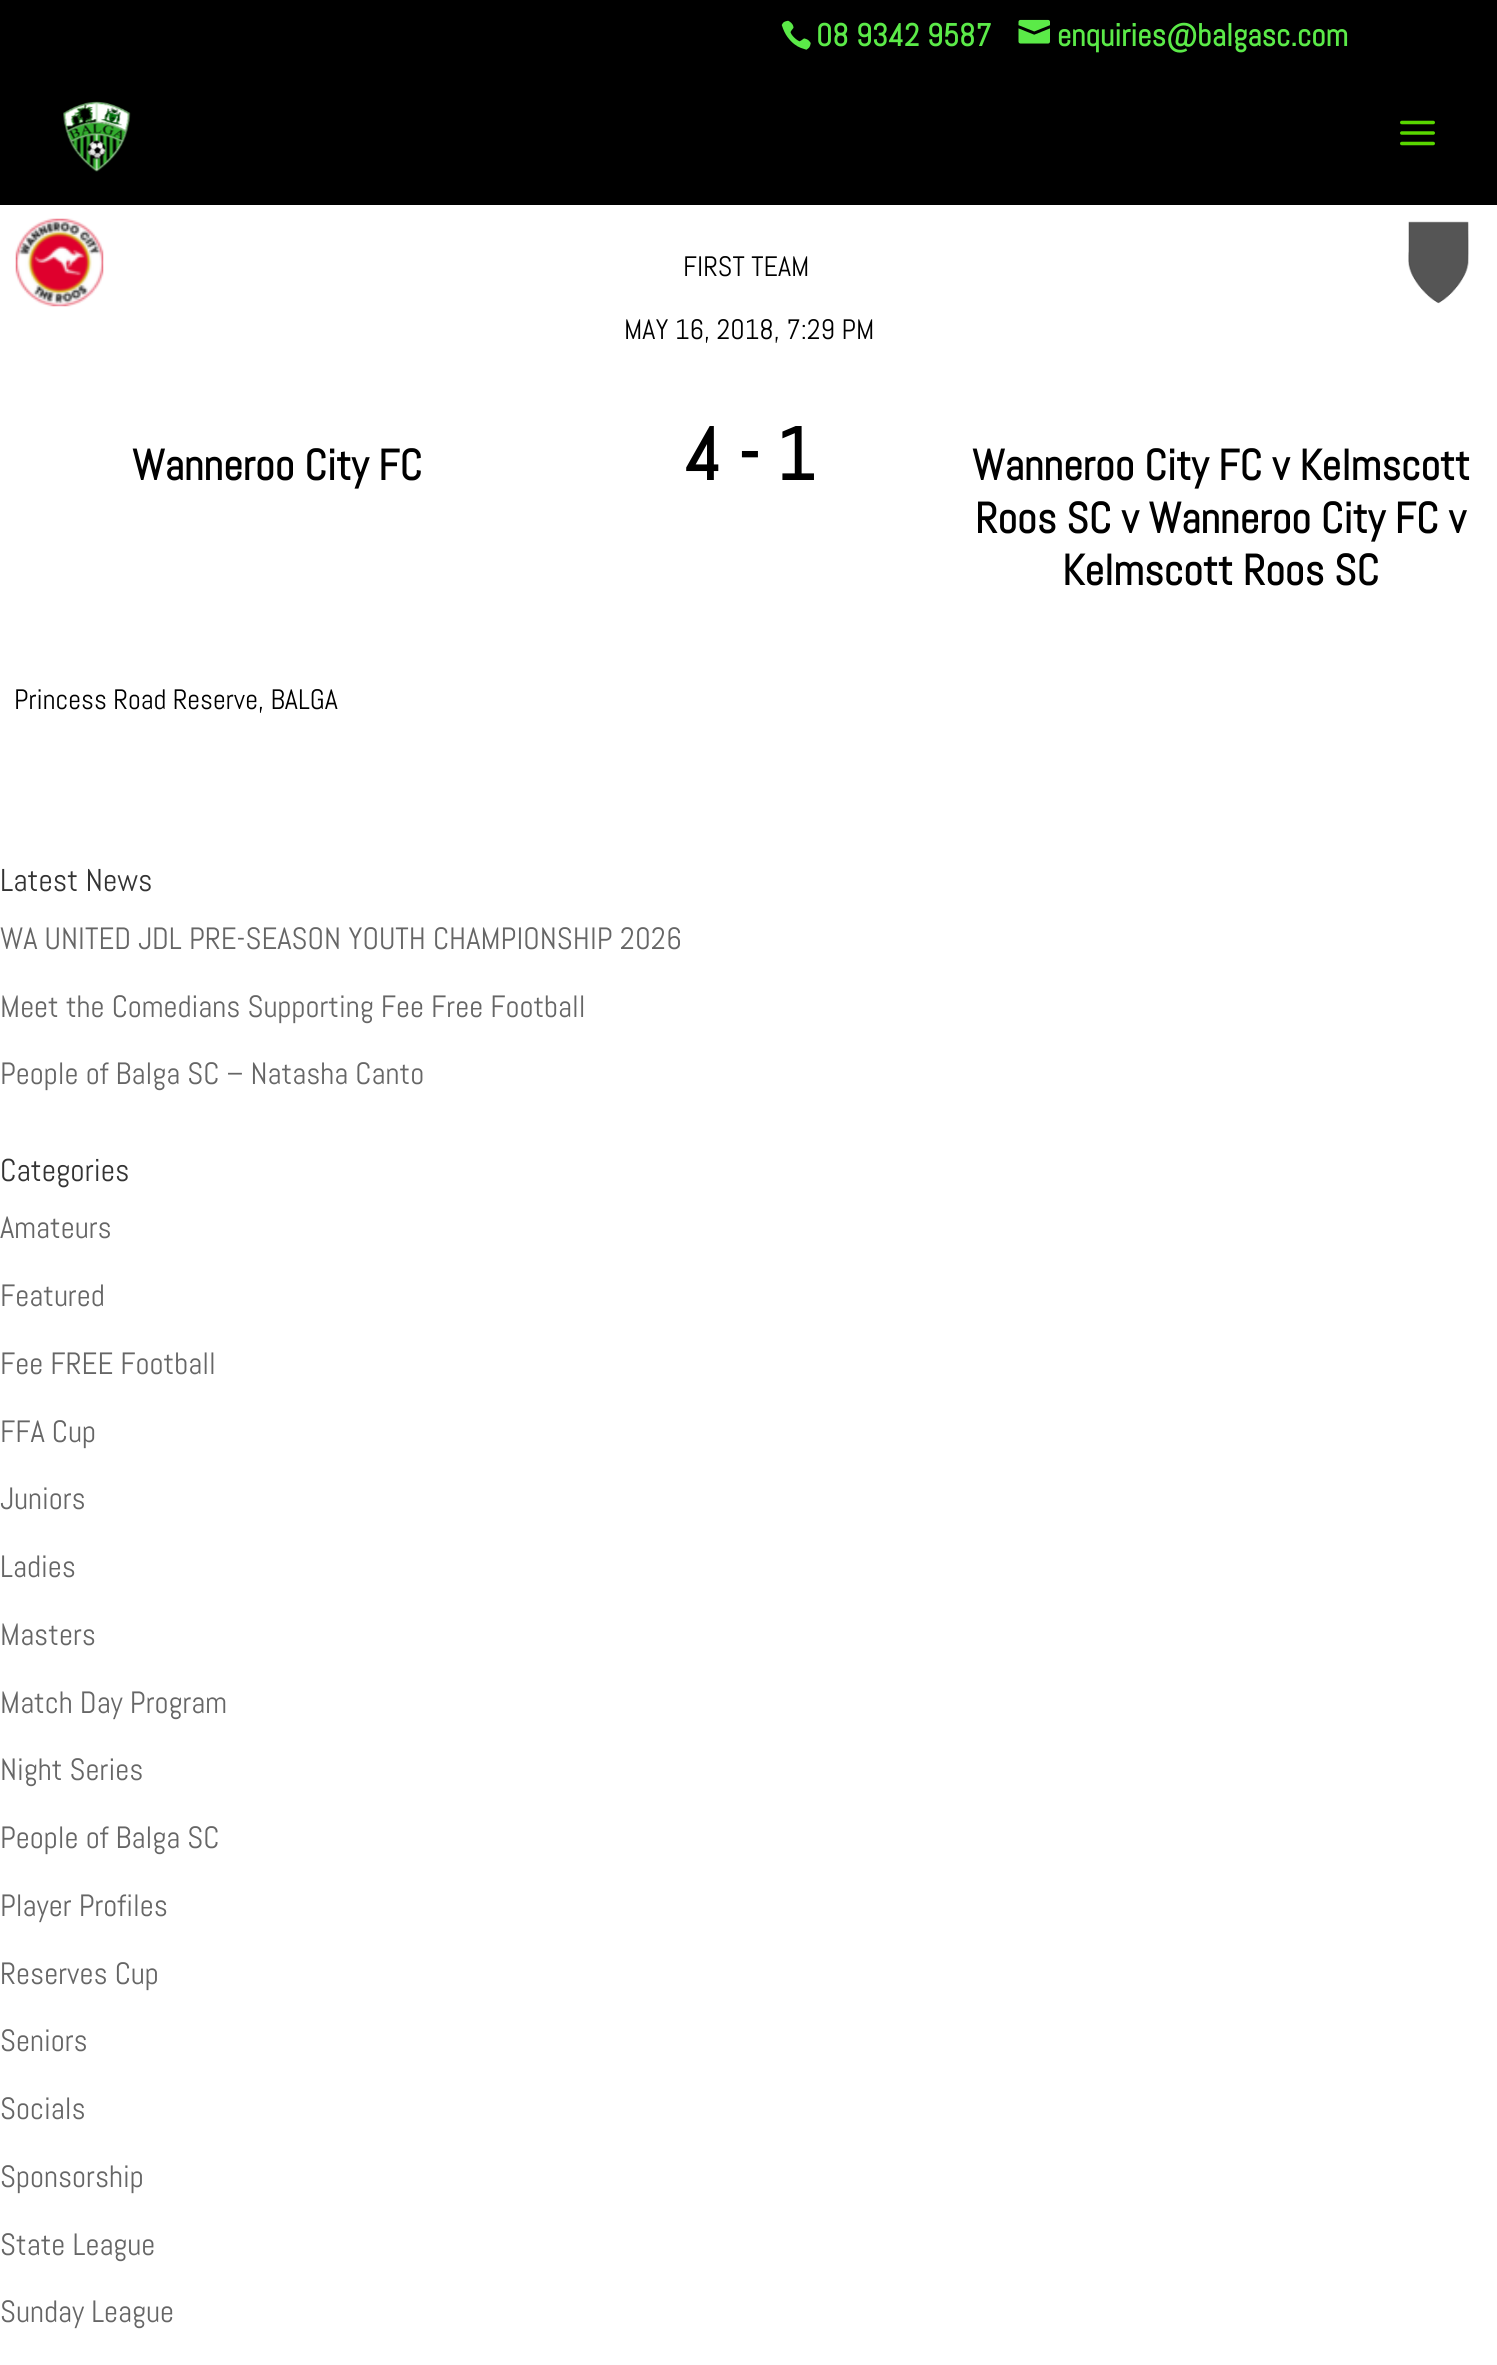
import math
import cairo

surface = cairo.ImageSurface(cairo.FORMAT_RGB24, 1497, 2365)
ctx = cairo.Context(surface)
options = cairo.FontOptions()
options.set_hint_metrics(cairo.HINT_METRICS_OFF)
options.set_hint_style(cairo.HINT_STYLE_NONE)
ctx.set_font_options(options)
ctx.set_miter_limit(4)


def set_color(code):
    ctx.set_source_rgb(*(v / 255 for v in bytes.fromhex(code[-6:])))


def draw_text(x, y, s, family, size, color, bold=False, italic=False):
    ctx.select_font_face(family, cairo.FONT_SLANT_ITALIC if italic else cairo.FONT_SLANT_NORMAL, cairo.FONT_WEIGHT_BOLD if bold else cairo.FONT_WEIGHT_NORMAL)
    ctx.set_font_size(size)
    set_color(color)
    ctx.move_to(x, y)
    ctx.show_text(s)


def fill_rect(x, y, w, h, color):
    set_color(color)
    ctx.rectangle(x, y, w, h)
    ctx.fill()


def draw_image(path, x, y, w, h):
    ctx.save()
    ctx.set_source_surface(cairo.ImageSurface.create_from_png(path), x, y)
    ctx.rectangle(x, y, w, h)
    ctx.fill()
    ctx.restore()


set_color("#ffffff")
ctx.paint()
fill_rect(0, 0, 1497, 205, "#000000")
draw_image("assets/img1.png", 63, 101, 68, 71)
draw_image("assets/img2.png", 1400, 120, 35, 26)
draw_image("assets/img3.png", 781, 20, 30, 30)
draw_text(816, 46, "08 9342 9587", "Abel", 31.5, "#5bea48", bold=True)
draw_image("assets/img4.png", 1018, 19, 32, 25)
draw_text(1057, 46, "enquiries@balgasc.com", "Abel", 31.5, "#5bea48", bold=True)
draw_image("assets/img5.png", 15, 218, 89, 89)
draw_text(683, 276, "FIRST TEAM", "Abel", 28.1, "#000000")
draw_image("assets/img6.png", 1408, 221, 61, 83)
draw_text(624, 339, "MAY 16, 2018, 7:29 PM", "Abel", 28.1, "#000000")
draw_text(132, 480, "Wanneroo City FC", "Abel", 43.1, "#000000", bold=True)
draw_text(684, 480, "4 - 1", "Abel", 74, "#000000", bold=True)
draw_text(972, 480, "Wanneroo City FC v Kelmscott", "Abel", 43.1, "#000000", bold=True)
draw_text(975, 533, "Roos SC v Wanneroo City FC v", "Abel", 43.1, "#000000", bold=True)
draw_text(1062, 585, "Kelmscott Roos SC", "Abel", 43.1, "#000000", bold=True)
draw_text(14, 709, "Princess Road Reserve, BALGA", "Abel", 28.1, "#000000")
draw_text(0, 891, "Latest News", "Abel", 31.5, "#333333")
draw_text(0, 949, "WA UNITED JDL PRE-SEASON YOUTH CHAMPIONSHIP 2026", "Abel", 30.8, "#666666")
draw_text(0, 1017, "Meet the Comedians Supporting Fee Free Football", "Abel", 30.8, "#666666")
draw_text(0, 1084, "People of Balga SC – Natasha Canto", "Abel", 30.8, "#666666")
draw_text(0, 1181, "Categories", "Abel", 31.5, "#333333")
draw_text(0, 1238, "Amateurs", "Abel", 30.8, "#666666")
draw_text(0, 1306, "Featured", "Abel", 30.8, "#666666")
draw_text(0, 1374, "Fee FREE Football", "Abel", 30.8, "#666666")
draw_text(0, 1442, "FFA Cup", "Abel", 30.8, "#666666")
draw_text(0, 1509, "Juniors", "Abel", 30.8, "#666666")
draw_text(0, 1577, "Ladies", "Abel", 30.8, "#666666")
draw_text(0, 1645, "Masters", "Abel", 30.8, "#666666")
draw_text(0, 1713, "Match Day Program", "Abel", 30.8, "#666666")
draw_text(0, 1780, "Night Series", "Abel", 30.8, "#666666")
draw_text(0, 1848, "People of Balga SC", "Abel", 30.8, "#666666")
draw_text(0, 1916, "Player Profiles", "Abel", 30.8, "#666666")
draw_text(0, 1984, "Reserves Cup", "Abel", 30.8, "#666666")
draw_text(0, 2051, "Seniors", "Abel", 30.8, "#666666")
draw_text(0, 2119, "Socials", "Abel", 30.8, "#666666")
draw_text(0, 2187, "Sponsorship", "Abel", 30.8, "#666666")
draw_text(0, 2255, "State League", "Abel", 30.8, "#666666")
draw_text(0, 2322, "Sunday League", "Abel", 30.8, "#666666")
surface.write_to_png("output.png")
